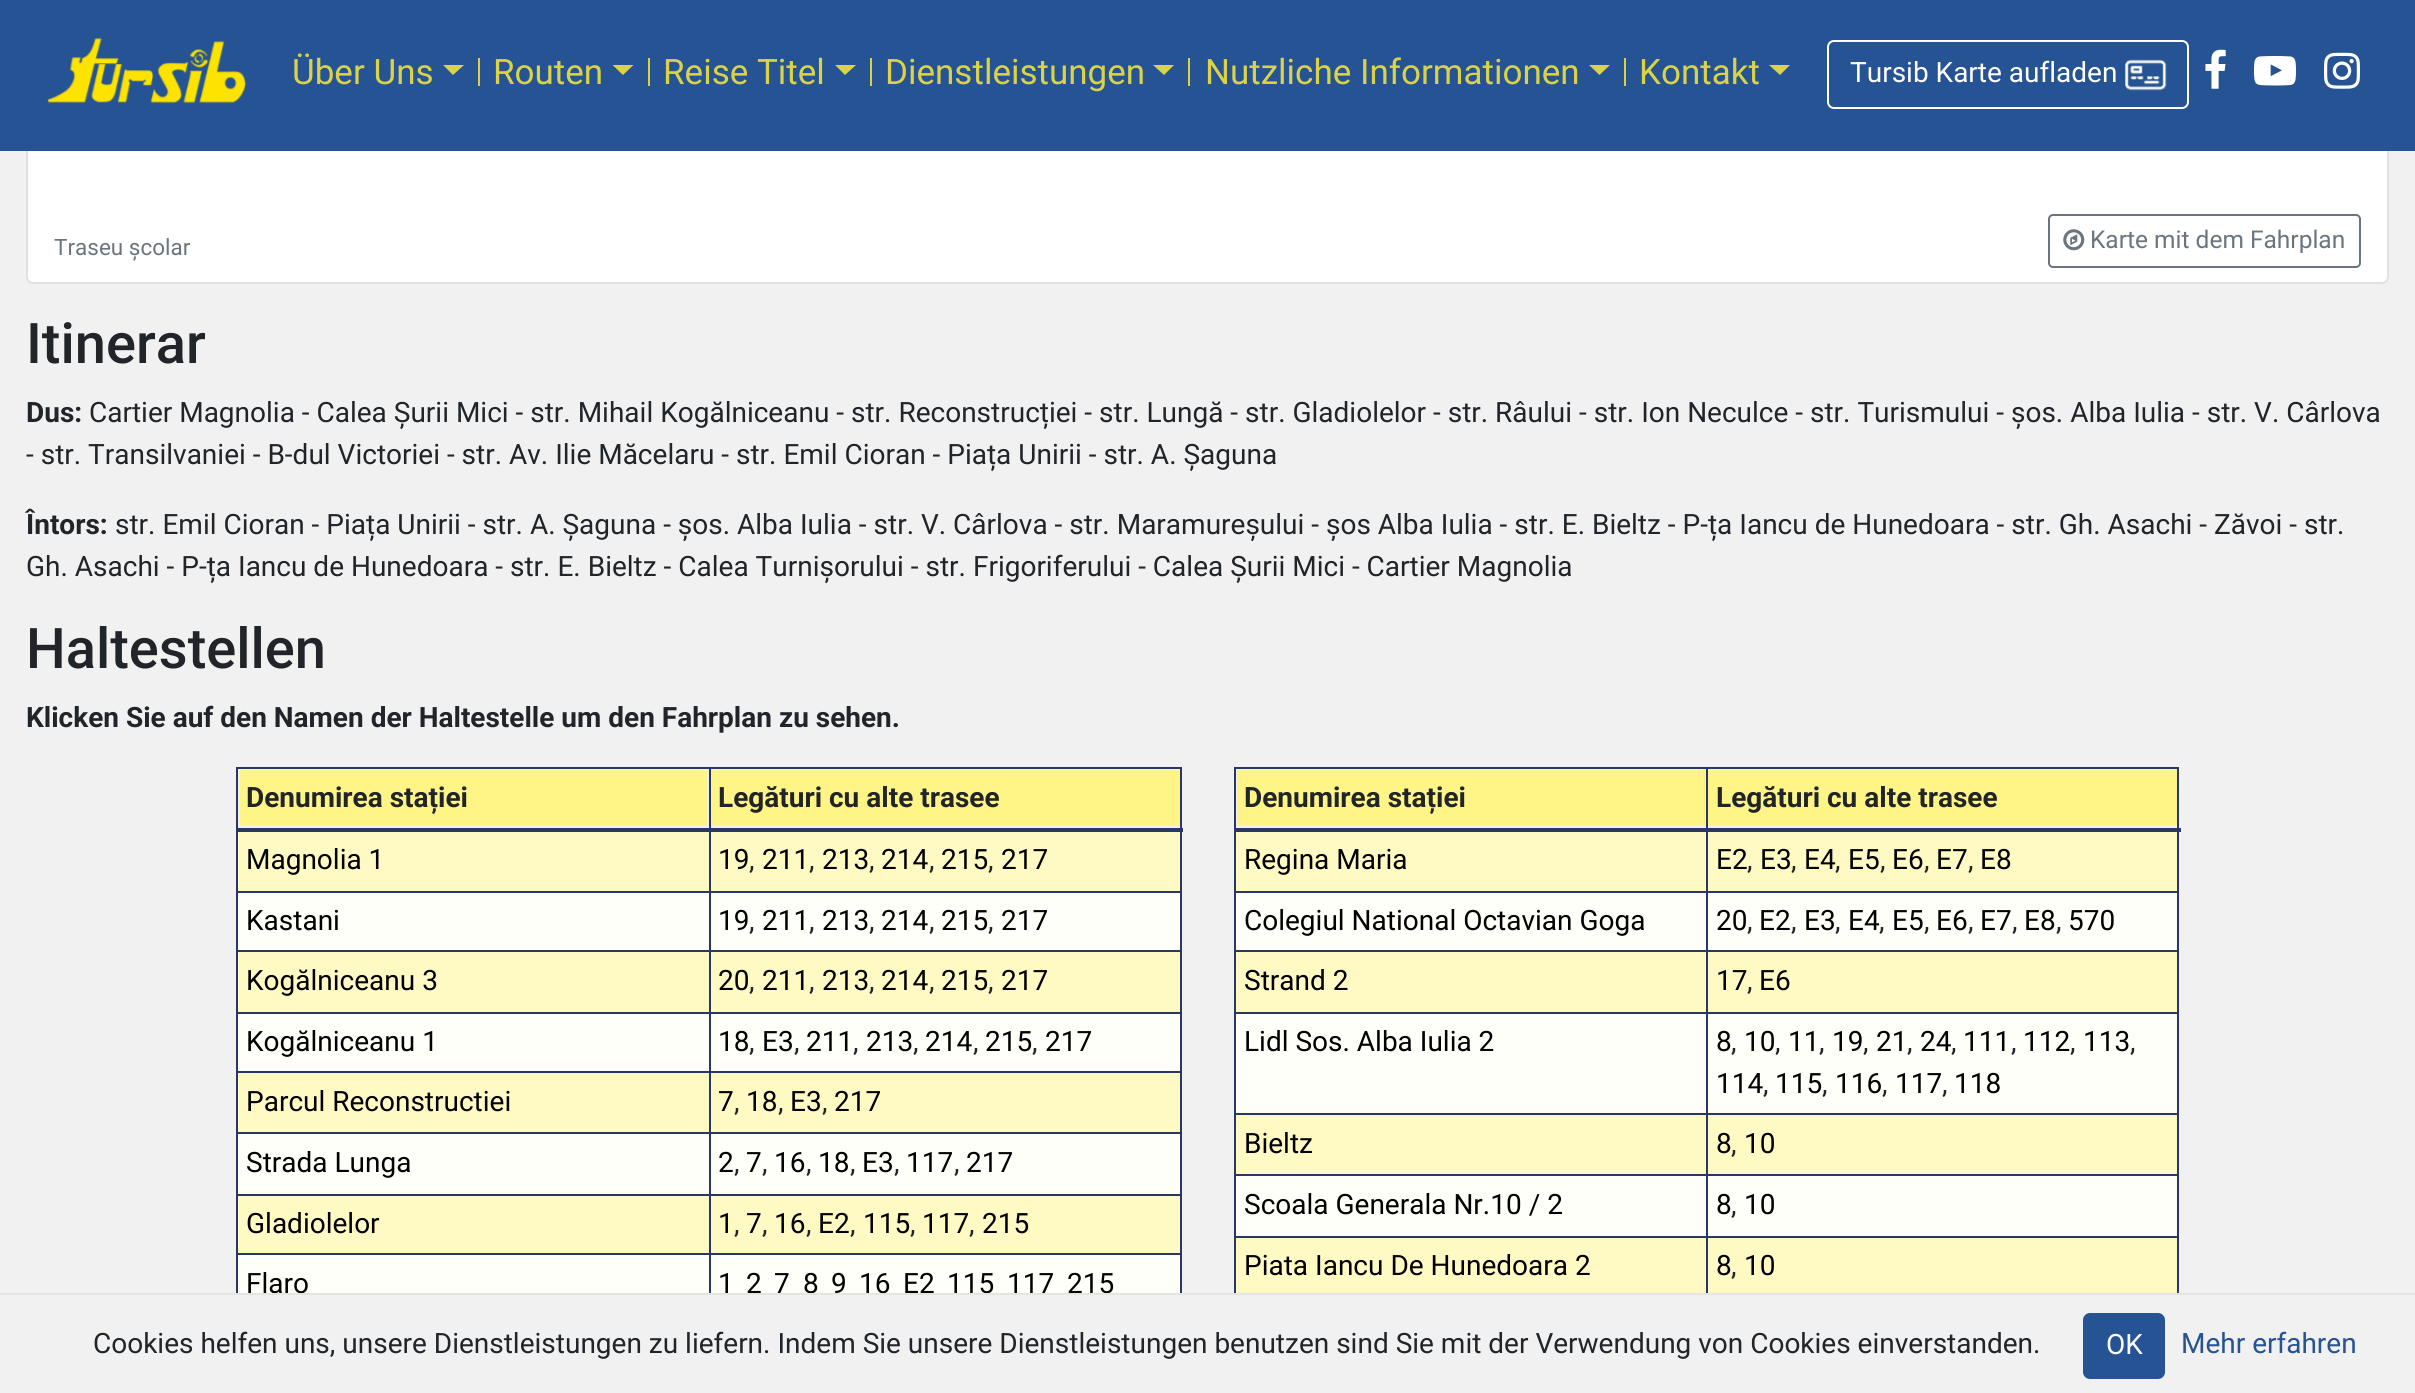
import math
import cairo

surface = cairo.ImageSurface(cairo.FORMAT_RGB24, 2415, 1393)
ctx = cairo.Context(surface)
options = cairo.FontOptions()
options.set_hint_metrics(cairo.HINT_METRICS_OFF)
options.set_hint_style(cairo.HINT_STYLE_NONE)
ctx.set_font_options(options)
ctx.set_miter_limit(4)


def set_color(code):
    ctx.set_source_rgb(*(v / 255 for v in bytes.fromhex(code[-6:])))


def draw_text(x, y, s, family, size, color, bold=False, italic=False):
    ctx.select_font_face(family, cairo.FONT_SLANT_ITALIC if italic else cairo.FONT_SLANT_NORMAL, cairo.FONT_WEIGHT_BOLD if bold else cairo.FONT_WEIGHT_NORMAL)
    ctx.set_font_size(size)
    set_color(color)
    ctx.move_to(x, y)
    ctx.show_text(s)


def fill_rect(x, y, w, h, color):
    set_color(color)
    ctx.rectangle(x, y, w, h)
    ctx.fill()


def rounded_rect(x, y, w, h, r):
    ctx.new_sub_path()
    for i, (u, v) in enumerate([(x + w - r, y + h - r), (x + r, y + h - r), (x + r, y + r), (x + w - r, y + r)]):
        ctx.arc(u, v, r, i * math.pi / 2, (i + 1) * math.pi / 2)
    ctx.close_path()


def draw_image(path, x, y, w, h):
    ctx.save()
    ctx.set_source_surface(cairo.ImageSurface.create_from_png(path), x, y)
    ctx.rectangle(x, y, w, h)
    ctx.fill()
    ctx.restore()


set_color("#f1f1f1")
ctx.paint()
set_color("#ffffff")
rounded_rect(26, 63, 2363, 221, 7)
ctx.fill()
rounded_rect(27, 64, 2361, 219, 6)
ctx.set_source_rgba(0, 0, 0, 0.12)
ctx.stroke()
fill_rect(0, 0, 2415, 151, "#255393")
draw_image("assets/img1.png", 47, 37, 200, 67)
fill_rect(478, 58, 2, 28, "#dad348")
draw_text(292, 84, "Über Uns", "Roboto", 35, "#dad348")
ctx.new_path()
ctx.move_to(443, 65)
ctx.line_to(464, 65)
ctx.line_to(453, 75)
ctx.close_path()
ctx.fill()
fill_rect(648, 58, 2, 28, "#dad348")
draw_text(493, 84, "Routen", "Roboto", 35, "#dad348")
ctx.new_path()
ctx.move_to(612.5, 65)
ctx.line_to(633.5, 65)
ctx.line_to(623, 75)
ctx.close_path()
ctx.fill()
fill_rect(870, 58, 2, 28, "#dad348")
draw_text(663, 84, "Reise Titel", "Roboto", 35, "#dad348")
ctx.new_path()
ctx.move_to(835, 65)
ctx.line_to(856, 65)
ctx.line_to(845, 75)
ctx.close_path()
ctx.fill()
fill_rect(1188, 58, 2, 28, "#dad348")
draw_text(885, 84, "Dienstleistungen", "Roboto", 35, "#dad348")
ctx.new_path()
ctx.move_to(1153, 65)
ctx.line_to(1174, 65)
ctx.line_to(1164, 75)
ctx.close_path()
ctx.fill()
fill_rect(1624, 58, 2, 28, "#dad348")
draw_text(1205, 84, "Nutzliche Informationen", "Roboto", 35, "#dad348")
ctx.new_path()
ctx.move_to(1589, 65)
ctx.line_to(1610, 65)
ctx.line_to(1599.5, 75)
ctx.close_path()
ctx.fill()
draw_text(1639, 84, "Kontakt", "Roboto", 35, "#dad348")
ctx.new_path()
ctx.move_to(1769, 65)
ctx.line_to(1790, 65)
ctx.line_to(1780, 75)
ctx.close_path()
ctx.fill()
rounded_rect(1828, 41, 360, 67, 6)
set_color("#ffffff")
ctx.stroke()
draw_text(1850, 82, "Tursib Karte aufladen", "Roboto", 28, "#ffffff")
draw_image("assets/img2.png", 2125, 59, 42, 32)
draw_image("assets/img3.png", 2205, 49, 21, 40)
draw_image("assets/img4.png", 2254, 56, 42, 30)
draw_image("assets/img5.png", 2324, 52, 36, 37)
draw_text(54, 255, "Traseu școlar", "Roboto", 22.5, "#6c757d")
rounded_rect(2049, 215, 311, 52, 4)
ctx.stroke()
draw_image("assets/img6.png", 2063, 229, 22, 22)
draw_text(2090, 248, "Karte mit dem Fahrplan", "Roboto", 24.5, "#6c757d")
draw_text(26, 363, "Itinerar", "Roboto Medium", 56, "#212529")
draw_text(26, 422, "Dus:", "Roboto", 28, "#212529", bold=True)
draw_text(89, 422, "Cartier Magnolia - Calea Șurii Mici - str. Mihail Kogălniceanu - str. Reconstrucției - str. Lungă - str. Gladiolelor - str. Râului - str. Ion Neculce - str. Turismului - șos. Alba Iulia - str. V. Cârlova", "Roboto", 28, "#212529")
draw_text(26, 464, "- str. Transilvaniei - B-dul Victoriei - str. Av. Ilie Măcelaru - str. Emil Cioran - Piața Unirii - str. A. Șaguna", "Roboto", 28, "#212529")
draw_text(26, 534, "Întors:", "Roboto", 28, "#212529", bold=True)
draw_text(115, 534, "str. Emil Cioran - Piața Unirii - str. A. Șaguna - șos. Alba Iulia - str. V. Cârlova - str. Maramureșului - șos Alba Iulia - str. E. Bieltz - P-ța Iancu de Hunedoara - str. Gh. Asachi - Zăvoi - str.", "Roboto", 28, "#212529")
draw_text(26, 576, "Gh. Asachi - P-ța Iancu de Hunedoara - str. E. Bieltz - Calea Turnișorului - str. Frigoriferului - Calea Șurii Mici - Cartier Magnolia", "Roboto", 28, "#212529")
draw_text(26, 668, "Haltestellen", "Roboto Medium", 56, "#212529")
draw_text(26, 727, "Klicken Sie auf den Namen der Haltestelle um den Fahrplan zu sehen.", "Roboto", 28, "#212529", bold=True)
fill_rect(236, 767, 945, 2, "#283863")
fill_rect(1180, 767, 2, 526, "#283863")
fill_rect(236, 767, 2, 526, "#283863")
fill_rect(240, 770, 467, 56, "#fff586")
draw_text(246, 807, "Denumirea stației", "Roboto", 28, "#212529", bold=True)
fill_rect(711, 770, 469, 56, "#fff586")
fill_rect(709, 891, 472, 2, "#283863")
fill_rect(709, 950, 472, 2, "#283863")
fill_rect(709, 1012, 472, 2, "#283863")
fill_rect(709, 1071, 472, 2, "#283863")
fill_rect(709, 1132, 472, 2, "#283863")
fill_rect(709, 1194, 472, 2, "#283863")
fill_rect(709, 1253, 472, 2, "#283863")
fill_rect(709, 1253, 2, 40, "#283863")
fill_rect(236, 1253, 475, 2, "#283863")
fill_rect(709, 1194, 2, 61, "#283863")
fill_rect(236, 1194, 475, 2, "#283863")
fill_rect(709, 1132, 2, 63, "#283863")
fill_rect(236, 1132, 475, 2, "#283863")
fill_rect(709, 1071, 2, 63, "#283863")
fill_rect(236, 1071, 475, 2, "#283863")
fill_rect(709, 1012, 2, 61, "#283863")
fill_rect(236, 1012, 475, 2, "#283863")
fill_rect(709, 950, 2, 63, "#283863")
fill_rect(236, 950, 475, 2, "#283863")
fill_rect(709, 891, 2, 61, "#283863")
fill_rect(236, 891, 475, 2, "#283863")
fill_rect(709, 767, 2, 126, "#283863")
fill_rect(236, 828, 947, 4, "#283863")
draw_text(718, 807, "Legături cu alte trasee", "Roboto", 28, "#212529", bold=True)
fill_rect(238, 832, 471, 59, "#fffac3")
draw_text(246, 869, "Magnolia 1", "Roboto", 28, "#000000")
fill_rect(711, 832, 469, 59, "#fffac3")
draw_text(718, 869, "19", "Roboto", 28, "#000000")
draw_text(749, 869, ",", "Roboto", 28, "#212529")
draw_text(762, 869, "211", "Roboto", 28, "#000000")
draw_text(809, 869, ",", "Roboto", 28, "#212529")
draw_text(822, 869, "213", "Roboto", 28, "#000000")
draw_text(869, 869, ",", "Roboto", 28, "#212529")
draw_text(881, 869, "214", "Roboto", 28, "#000000")
draw_text(929, 869, ",", "Roboto", 28, "#212529")
draw_text(941, 869, "215", "Roboto", 28, "#000000")
draw_text(988, 869, ",", "Roboto", 28, "#212529")
draw_text(1001, 869, "217", "Roboto", 28, "#000000")
fill_rect(238, 893, 471, 57, "#fffff9")
draw_text(246, 930, "Kastani", "Roboto", 28, "#000000")
fill_rect(711, 893, 469, 57, "#fffff9")
draw_text(718, 930, "19", "Roboto", 28, "#000000")
draw_text(749, 930, ",", "Roboto", 28, "#212529")
draw_text(762, 930, "211", "Roboto", 28, "#000000")
draw_text(809, 930, ",", "Roboto", 28, "#212529")
draw_text(822, 930, "213", "Roboto", 28, "#000000")
draw_text(869, 930, ",", "Roboto", 28, "#212529")
draw_text(881, 930, "214", "Roboto", 28, "#000000")
draw_text(929, 930, ",", "Roboto", 28, "#212529")
draw_text(941, 930, "215", "Roboto", 28, "#000000")
draw_text(988, 930, ",", "Roboto", 28, "#212529")
draw_text(1001, 930, "217", "Roboto", 28, "#000000")
fill_rect(238, 952, 471, 60, "#fffac3")
draw_text(246, 990, "Kogălniceanu 3", "Roboto", 28, "#000000")
fill_rect(711, 952, 469, 60, "#fffac3")
draw_text(718, 990, "20", "Roboto", 28, "#000000")
draw_text(749, 990, ",", "Roboto", 28, "#212529")
draw_text(762, 990, "211", "Roboto", 28, "#000000")
draw_text(809, 990, ",", "Roboto", 28, "#212529")
draw_text(822, 990, "213", "Roboto", 28, "#000000")
draw_text(869, 990, ",", "Roboto", 28, "#212529")
draw_text(881, 990, "214", "Roboto", 28, "#000000")
draw_text(929, 990, ",", "Roboto", 28, "#212529")
draw_text(941, 990, "215", "Roboto", 28, "#000000")
draw_text(988, 990, ",", "Roboto", 28, "#212529")
draw_text(1001, 990, "217", "Roboto", 28, "#000000")
fill_rect(238, 1014, 471, 57, "#fffff9")
draw_text(246, 1051, "Kogălniceanu 1", "Roboto", 28, "#000000")
fill_rect(711, 1014, 469, 57, "#fffff9")
draw_text(718, 1051, "18", "Roboto", 28, "#000000")
draw_text(749, 1051, ",", "Roboto", 28, "#212529")
draw_text(762, 1051, "E3", "Roboto", 28, "#000000")
draw_text(794, 1051, ",", "Roboto", 28, "#212529")
draw_text(806, 1051, "211", "Roboto", 28, "#000000")
draw_text(853, 1051, ",", "Roboto", 28, "#212529")
draw_text(866, 1051, "213", "Roboto", 28, "#000000")
draw_text(913, 1051, ",", "Roboto", 28, "#212529")
draw_text(925, 1051, "214", "Roboto", 28, "#000000")
draw_text(973, 1051, ",", "Roboto", 28, "#212529")
draw_text(985, 1051, "215", "Roboto", 28, "#000000")
draw_text(1032, 1051, ",", "Roboto", 28, "#212529")
draw_text(1045, 1051, "217", "Roboto", 28, "#000000")
fill_rect(238, 1073, 471, 59, "#fffac3")
draw_text(246, 1111, "Parcul Reconstructiei", "Roboto", 28, "#000000")
fill_rect(711, 1073, 469, 59, "#fffac3")
draw_text(718, 1111, "7", "Roboto", 28, "#000000")
draw_text(734, 1111, ",", "Roboto", 28, "#212529")
draw_text(746, 1111, "18", "Roboto", 28, "#000000")
draw_text(778, 1111, ",", "Roboto", 28, "#212529")
draw_text(790, 1111, "E3", "Roboto", 28, "#000000")
draw_text(822, 1111, ",", "Roboto", 28, "#212529")
draw_text(834, 1111, "217", "Roboto", 28, "#000000")
fill_rect(238, 1134, 471, 60, "#fffff9")
draw_text(246, 1172, "Strada Lunga", "Roboto", 28, "#000000")
fill_rect(711, 1134, 469, 60, "#fffff9")
draw_text(718, 1172, "2", "Roboto", 28, "#000000")
draw_text(734, 1172, ",", "Roboto", 28, "#212529")
draw_text(746, 1172, "7", "Roboto", 28, "#000000")
draw_text(762, 1172, ",", "Roboto", 28, "#212529")
draw_text(774, 1172, "16", "Roboto", 28, "#000000")
draw_text(806, 1172, ",", "Roboto", 28, "#212529")
draw_text(818, 1172, "18", "Roboto", 28, "#000000")
draw_text(850, 1172, ",", "Roboto", 28, "#212529")
draw_text(862, 1172, "E3", "Roboto", 28, "#000000")
draw_text(894, 1172, ",", "Roboto", 28, "#212529")
draw_text(906, 1172, "117", "Roboto", 28, "#000000")
draw_text(954, 1172, ",", "Roboto", 28, "#212529")
draw_text(966, 1172, "217", "Roboto", 28, "#000000")
fill_rect(238, 1196, 471, 57, "#fffac3")
draw_text(246, 1233, "Gladiolelor", "Roboto", 28, "#000000")
fill_rect(711, 1196, 469, 57, "#fffac3")
draw_text(718, 1233, "1", "Roboto", 28, "#000000")
draw_text(734, 1233, ",", "Roboto", 28, "#212529")
draw_text(746, 1233, "7", "Roboto", 28, "#000000")
draw_text(762, 1233, ",", "Roboto", 28, "#212529")
draw_text(774, 1233, "16", "Roboto", 28, "#000000")
draw_text(806, 1233, ",", "Roboto", 28, "#212529")
draw_text(818, 1233, "E2", "Roboto", 28, "#000000")
draw_text(850, 1233, ",", "Roboto", 28, "#212529")
draw_text(863, 1233, "115", "Roboto", 28, "#000000")
draw_text(910, 1233, ",", "Roboto", 28, "#212529")
draw_text(922, 1233, "117", "Roboto", 28, "#000000")
draw_text(969, 1233, ",", "Roboto", 28, "#212529")
draw_text(982, 1233, "215", "Roboto", 28, "#000000")
fill_rect(238, 1255, 471, 38, "#fffff9")
draw_text(246, 1293, "Flaro", "Roboto", 28, "#000000")
fill_rect(711, 1255, 469, 38, "#fffff9")
draw_text(718, 1293, "1", "Roboto", 28, "#000000")
draw_text(746, 1293, "2", "Roboto", 28, "#000000")
draw_text(774, 1293, "7", "Roboto", 28, "#000000")
draw_text(803, 1293, "8", "Roboto", 28, "#000000")
draw_text(831, 1293, "9", "Roboto", 28, "#000000")
draw_text(859, 1293, "16", "Roboto", 28, "#000000")
draw_text(903, 1293, "E2", "Roboto", 28, "#000000")
draw_text(947, 1293, "115", "Roboto", 28, "#000000")
draw_text(1007, 1293, "117", "Roboto", 28, "#000000")
draw_text(1067, 1293, "215", "Roboto", 28, "#000000")
fill_rect(1234, 767, 945, 2, "#283863")
fill_rect(2177, 767, 2, 526, "#283863")
fill_rect(1234, 767, 2, 526, "#283863")
fill_rect(1237, 770, 468, 56, "#fff586")
draw_text(1244, 807, "Denumirea stației", "Roboto", 28, "#212529", bold=True)
fill_rect(1708, 770, 469, 56, "#fff586")
fill_rect(1706, 891, 473, 2, "#283863")
fill_rect(1706, 950, 473, 2, "#283863")
fill_rect(1706, 1012, 473, 2, "#283863")
fill_rect(1706, 1113, 473, 2, "#283863")
fill_rect(1706, 1174, 473, 2, "#283863")
fill_rect(1706, 1236, 473, 2, "#283863")
fill_rect(1706, 1236, 2, 61, "#283863")
fill_rect(1234, 1236, 474, 2, "#283863")
fill_rect(1706, 1174, 2, 63, "#283863")
fill_rect(1234, 1174, 474, 2, "#283863")
fill_rect(1706, 1113, 2, 63, "#283863")
fill_rect(1234, 1113, 474, 2, "#283863")
fill_rect(1706, 1012, 2, 103, "#283863")
fill_rect(1234, 1012, 474, 2, "#283863")
fill_rect(1706, 950, 2, 63, "#283863")
fill_rect(1234, 950, 474, 2, "#283863")
fill_rect(1706, 891, 2, 61, "#283863")
fill_rect(1234, 891, 474, 2, "#283863")
fill_rect(1706, 767, 2, 126, "#283863")
fill_rect(1234, 828, 947, 4, "#283863")
draw_text(1716, 807, "Legături cu alte trasee", "Roboto", 28, "#212529", bold=True)
fill_rect(1236, 832, 470, 59, "#fffac3")
draw_text(1244, 869, "Regina Maria", "Roboto", 28, "#000000")
fill_rect(1708, 832, 469, 59, "#fffac3")
draw_text(1716, 869, "E2", "Roboto", 28, "#000000")
draw_text(1747, 869, ",", "Roboto", 28, "#212529")
draw_text(1760, 869, "E3", "Roboto", 28, "#000000")
draw_text(1791, 869, ",", "Roboto", 28, "#212529")
draw_text(1804, 869, "E4", "Roboto", 28, "#000000")
draw_text(1835, 869, ",", "Roboto", 28, "#212529")
draw_text(1848, 869, "E5", "Roboto", 28, "#000000")
draw_text(1880, 869, ",", "Roboto", 28, "#212529")
draw_text(1892, 869, "E6", "Roboto", 28, "#000000")
draw_text(1924, 869, ",", "Roboto", 28, "#212529")
draw_text(1936, 869, "E7", "Roboto", 28, "#000000")
draw_text(1968, 869, ",", "Roboto", 28, "#212529")
draw_text(1980, 869, "E8", "Roboto", 28, "#000000")
fill_rect(1236, 893, 470, 57, "#fffff9")
draw_text(1244, 930, "Colegiul National Octavian Goga", "Roboto", 28, "#000000")
fill_rect(1708, 893, 469, 57, "#fffff9")
draw_text(1716, 930, "20", "Roboto", 28, "#000000")
draw_text(1747, 930, ",", "Roboto", 28, "#212529")
draw_text(1759, 930, "E2", "Roboto", 28, "#000000")
draw_text(1791, 930, ",", "Roboto", 28, "#212529")
draw_text(1804, 930, "E3", "Roboto", 28, "#000000")
draw_text(1835, 930, ",", "Roboto", 28, "#212529")
draw_text(1848, 930, "E4", "Roboto", 28, "#000000")
draw_text(1879, 930, ",", "Roboto", 28, "#212529")
draw_text(1892, 930, "E5", "Roboto", 28, "#000000")
draw_text(1924, 930, ",", "Roboto", 28, "#212529")
draw_text(1936, 930, "E6", "Roboto", 28, "#000000")
draw_text(1968, 930, ",", "Roboto", 28, "#212529")
draw_text(1980, 930, "E7", "Roboto", 28, "#000000")
draw_text(2012, 930, ",", "Roboto", 28, "#212529")
draw_text(2024, 930, "E8", "Roboto", 28, "#000000")
draw_text(2056, 930, ",", "Roboto", 28, "#212529")
draw_text(2068, 930, "570", "Roboto", 28, "#000000")
fill_rect(1236, 952, 470, 60, "#fffac3")
draw_text(1244, 990, "Strand 2", "Roboto", 28, "#000000")
fill_rect(1708, 952, 469, 60, "#fffac3")
draw_text(1716, 990, "17", "Roboto", 28, "#000000")
draw_text(1747, 990, ",", "Roboto", 28, "#212529")
draw_text(1759, 990, "E6", "Roboto", 28, "#000000")
fill_rect(1236, 1014, 470, 99, "#fffff9")
draw_text(1244, 1051, "Lidl Sos. Alba Iulia 2", "Roboto", 28, "#000000")
fill_rect(1708, 1014, 469, 99, "#fffff9")
draw_text(1716, 1051, "8", "Roboto", 28, "#000000")
draw_text(1731, 1051, ",", "Roboto", 28, "#212529")
draw_text(1744, 1051, "10", "Roboto", 28, "#000000")
draw_text(1775, 1051, ",", "Roboto", 28, "#212529")
draw_text(1788, 1051, "11", "Roboto", 28, "#000000")
draw_text(1819, 1051, ",", "Roboto", 28, "#212529")
draw_text(1832, 1051, "19", "Roboto", 28, "#000000")
draw_text(1863, 1051, ",", "Roboto", 28, "#212529")
draw_text(1876, 1051, "21", "Roboto", 28, "#000000")
draw_text(1907, 1051, ",", "Roboto", 28, "#212529")
draw_text(1920, 1051, "24", "Roboto", 28, "#000000")
draw_text(1951, 1051, ",", "Roboto", 28, "#212529")
draw_text(1963, 1051, "111", "Roboto", 28, "#000000")
draw_text(2011, 1051, ",", "Roboto", 28, "#212529")
draw_text(2023, 1051, "112", "Roboto", 28, "#000000")
draw_text(2070, 1051, ",", "Roboto", 28, "#212529")
draw_text(2083, 1051, "113", "Roboto", 28, "#000000")
draw_text(2130, 1051, ",", "Roboto", 28, "#212529")
draw_text(1716, 1093, "114", "Roboto", 28, "#000000")
draw_text(1763, 1093, ",", "Roboto", 28, "#212529")
draw_text(1775, 1093, "115", "Roboto", 28, "#000000")
draw_text(1822, 1093, ",", "Roboto", 28, "#212529")
draw_text(1835, 1093, "116", "Roboto", 28, "#000000")
draw_text(1882, 1093, ",", "Roboto", 28, "#212529")
draw_text(1895, 1093, "117", "Roboto", 28, "#000000")
draw_text(1942, 1093, ",", "Roboto", 28, "#212529")
draw_text(1954, 1093, "118", "Roboto", 28, "#000000")
fill_rect(1236, 1115, 470, 59, "#fffac3")
draw_text(1244, 1153, "Bieltz", "Roboto", 28, "#000000")
fill_rect(1708, 1115, 469, 59, "#fffac3")
draw_text(1716, 1153, "8", "Roboto", 28, "#000000")
draw_text(1731, 1153, ",", "Roboto", 28, "#212529")
draw_text(1744, 1153, "10", "Roboto", 28, "#000000")
fill_rect(1236, 1176, 470, 60, "#fffff9")
draw_text(1244, 1214, "Scoala Generala Nr.10 / 2", "Roboto", 28, "#000000")
fill_rect(1708, 1176, 469, 60, "#fffff9")
draw_text(1716, 1214, "8", "Roboto", 28, "#000000")
draw_text(1731, 1214, ",", "Roboto", 28, "#212529")
draw_text(1744, 1214, "10", "Roboto", 28, "#000000")
fill_rect(1236, 1238, 470, 55, "#fffac3")
draw_text(1244, 1275, "Piata Iancu De Hunedoara 2", "Roboto", 28, "#000000")
fill_rect(1708, 1238, 469, 55, "#fffac3")
draw_text(1716, 1275, "8", "Roboto", 28, "#000000")
draw_text(1731, 1275, ",", "Roboto", 28, "#212529")
draw_text(1744, 1275, "10", "Roboto", 28, "#000000")
fill_rect(1706, 1295, 2, 2, "#f2f2f2")
fill_rect(0, 1293, 2415, 2, "#e4e4e4")
draw_text(93, 1353, "Cookies helfen uns, unsere Dienstleistungen zu liefern. Indem Sie unsere Dienstleistungen benutzen sind Sie mit der Verwendung von Cookies einverstanden.", "Roboto", 28, "#212529")
set_color("#255393")
rounded_rect(2084, 1314, 80, 64, 6)
ctx.fill_preserve()
ctx.stroke()
draw_text(2106, 1354, "OK", "Roboto", 28, "#ffffff")
draw_text(2181, 1353, "Mehr erfahren", "Roboto", 28, "#255393")
surface.write_to_png("output.png")
